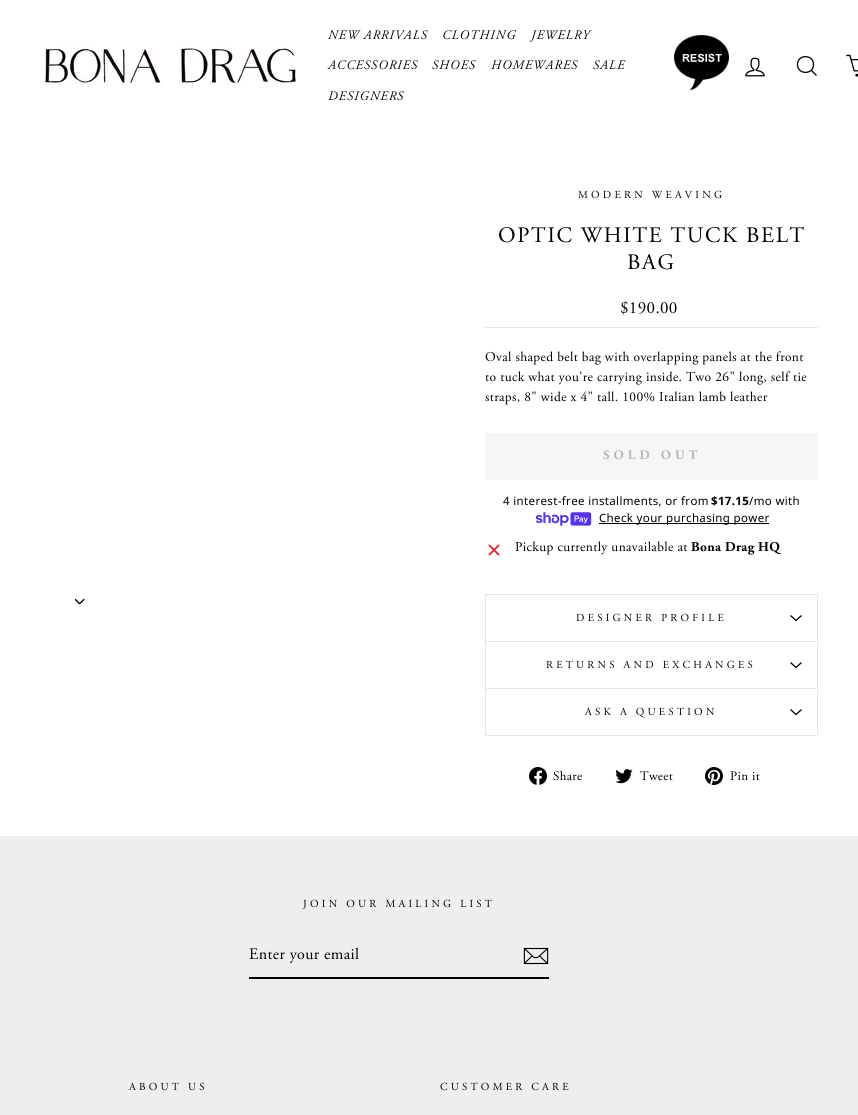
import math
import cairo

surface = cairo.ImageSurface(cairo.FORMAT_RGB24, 858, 1115)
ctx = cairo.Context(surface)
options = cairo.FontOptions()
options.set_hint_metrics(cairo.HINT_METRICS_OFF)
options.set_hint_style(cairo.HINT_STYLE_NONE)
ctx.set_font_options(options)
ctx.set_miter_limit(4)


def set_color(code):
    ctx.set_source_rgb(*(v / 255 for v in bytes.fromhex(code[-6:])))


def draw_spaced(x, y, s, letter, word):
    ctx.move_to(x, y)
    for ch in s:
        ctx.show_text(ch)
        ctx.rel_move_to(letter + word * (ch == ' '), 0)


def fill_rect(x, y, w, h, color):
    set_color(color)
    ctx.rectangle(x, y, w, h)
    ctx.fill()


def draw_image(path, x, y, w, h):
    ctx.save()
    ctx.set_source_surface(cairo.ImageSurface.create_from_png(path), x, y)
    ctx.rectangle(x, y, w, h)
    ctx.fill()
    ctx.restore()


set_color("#ffffff")
ctx.paint()
draw_image("assets/img1.png", 45, 46, 251, 39)
ctx.select_font_face("Adobe Garamond", cairo.FONT_SLANT_ITALIC)
ctx.set_font_size(13)
set_color("#000000")
draw_spaced(328, 39, "NEW ARRIVALS", 1, 0)
draw_spaced(442, 39, "CLOTHING", 1, 0)
draw_spaced(531, 39, "JEWELRY", 1, 0)
draw_spaced(328, 69, "ACCESSORIES", 1, 0)
draw_spaced(432, 69, "SHOES", 1, 0)
draw_spaced(491, 69, "HOMEWARES", 1, 0)
draw_spaced(593, 69, "SALE", 1, 0)
draw_spaced(328, 100, "DESIGNERS", 1, 0)
draw_image("assets/img2.png", 674, 35, 55, 55)
draw_image("assets/img3.png", 745, 57, 20, 20)
ctx.new_path()
ctx.move_to(813.5, 64.5)
ctx.curve_to(813.5, 75, 797.5, 75, 797.5, 64.5)
ctx.curve_to(797.5, 54, 813.5, 54, 813.5, 64.5)
ctx.close_path()
ctx.move_to(816.5, 75.5)
ctx.line_to(811.5, 70.5)
ctx.set_line_width(1.3)
ctx.stroke()
draw_image("assets/img4.png", 846, 54, 12, 23)
draw_image("assets/img5.png", 75, 598, 10, 7)
ctx.select_font_face("Adobe Garamond")
ctx.set_font_size(10.75)
draw_spaced(578, 198, "MODERN WEAVING", 3.25, 0)
ctx.set_font_size(22.1)
draw_spaced(498, 242, "OPTIC WHITE TUCK BELT", 1.7, 0)
draw_spaced(627, 269, "BAG", 1.7, 0)
ctx.set_font_size(17)
draw_spaced(620, 313, "$190.00", 0.35, 0)
fill_rect(485, 327, 333, 1, "#e8e8e1")
ctx.set_font_size(13.5)
set_color("#000000")
draw_spaced(485, 361, "Oval shaped belt bag with overlapping panels at the front", 0.35, 0)
draw_spaced(485, 381, "to tuck what you're carrying inside. Two 26\" long, self tie", 0.35, 0)
draw_spaced(485, 401, "straps, 8\" wide x 4\" tall. 100% Italian lamb leather", 0.35, 0)
fill_rect(485, 433, 333, 47, "#f6f6f6")
ctx.select_font_face("Adobe Garamond", cairo.FONT_SLANT_NORMAL, cairo.FONT_WEIGHT_BOLD)
ctx.set_font_size(13)
set_color("#b6b6b6")
draw_spaced(603, 459, "SOLD OUT", 4, 0)
ctx.select_font_face("Noto Sans")
ctx.set_font_size(11.5)
set_color("#000000")
draw_spaced(503, 505, "4 interest-free installments, or from", 0.35, 0)
ctx.select_font_face("Noto Sans", cairo.FONT_SLANT_NORMAL, cairo.FONT_WEIGHT_BOLD)
draw_spaced(711, 505, "$17.15", 0.35, 0)
ctx.select_font_face("Noto Sans")
draw_spaced(749, 505, "/mo with", 0.35, 0)
draw_image("assets/img6.png", 535, 512, 57, 14)
fill_rect(599, 523, 170, 1, "#000000")
draw_spaced(599, 522, "Check your purchasing power", 0.35, 0)
draw_image("assets/img7.png", 488, 544, 12, 12)
ctx.select_font_face("Adobe Garamond")
ctx.set_font_size(13.5)
draw_spaced(515, 551, "Pickup currently unavailable at", 0.35, 0)
ctx.select_font_face("Adobe Garamond", cairo.FONT_SLANT_NORMAL, cairo.FONT_WEIGHT_BOLD)
draw_spaced(691, 551, "Bona Drag HQ", 0.35, 0)
fill_rect(485, 641, 333, 1, "#e8e8e1")
fill_rect(485, 594, 333, 1, "#e8e8e1")
fill_rect(817, 594, 1, 47, "#e8e8e1")
fill_rect(485, 594, 1, 47, "#e8e8e1")
ctx.select_font_face("Adobe Garamond")
ctx.set_font_size(10.75)
set_color("#000000")
draw_spaced(576, 621, "DESIGNER PROFILE", 3.25, 0)
ctx.new_path()
ctx.move_to(790.5, 615.5)
ctx.line_to(796, 620.5)
ctx.line_to(801.5, 615.5)
ctx.stroke()
fill_rect(485, 688, 333, 1, "#e8e8e1")
fill_rect(817, 642, 1, 46, "#e8e8e1")
fill_rect(485, 642, 1, 46, "#e8e8e1")
set_color("#000000")
draw_spaced(546, 668, "RETURNS AND EXCHANGES", 3.25, 0)
ctx.new_path()
ctx.move_to(790.5, 662.5)
ctx.line_to(796, 667.5)
ctx.line_to(801.5, 662.5)
ctx.stroke()
fill_rect(485, 735, 333, 1, "#e8e8e1")
fill_rect(817, 689, 1, 46, "#e8e8e1")
fill_rect(485, 689, 1, 46, "#e8e8e1")
set_color("#000000")
draw_spaced(585, 715, "ASK A QUESTION", 3.25, 0)
ctx.new_path()
ctx.move_to(790.5, 709.5)
ctx.line_to(796, 714.5)
ctx.line_to(801.5, 709.5)
ctx.stroke()
draw_image("assets/img8.png", 529, 767, 18, 18)
ctx.set_font_size(13)
draw_spaced(553, 780, "Share", 0.35, 0)
draw_image("assets/img9.png", 615, 769, 18, 15)
draw_spaced(640, 780, "Tweet", 0.35, 0)
draw_image("assets/img10.png", 705, 767, 18, 18)
draw_spaced(730, 780, "Pin it", 0.35, 0)
fill_rect(0, 836, 858, 279, "#eeeeee")
ctx.set_font_size(10.75)
set_color("#000000")
draw_spaced(303, 907, "JOIN OUR MAILING LIST", 3.25, 0)
fill_rect(249, 977, 300, 2, "#000000")
ctx.set_font_size(16)
draw_spaced(249, 959, "Enter your email", 0.4, 0)
draw_image("assets/img11.png", 523, 947, 26, 18)
ctx.set_font_size(10.75)
draw_spaced(129, 1090, "ABOUT US", 3.25, 0)
draw_spaced(440, 1090, "CUSTOMER CARE", 3.25, 0)
surface.write_to_png("output.png")
